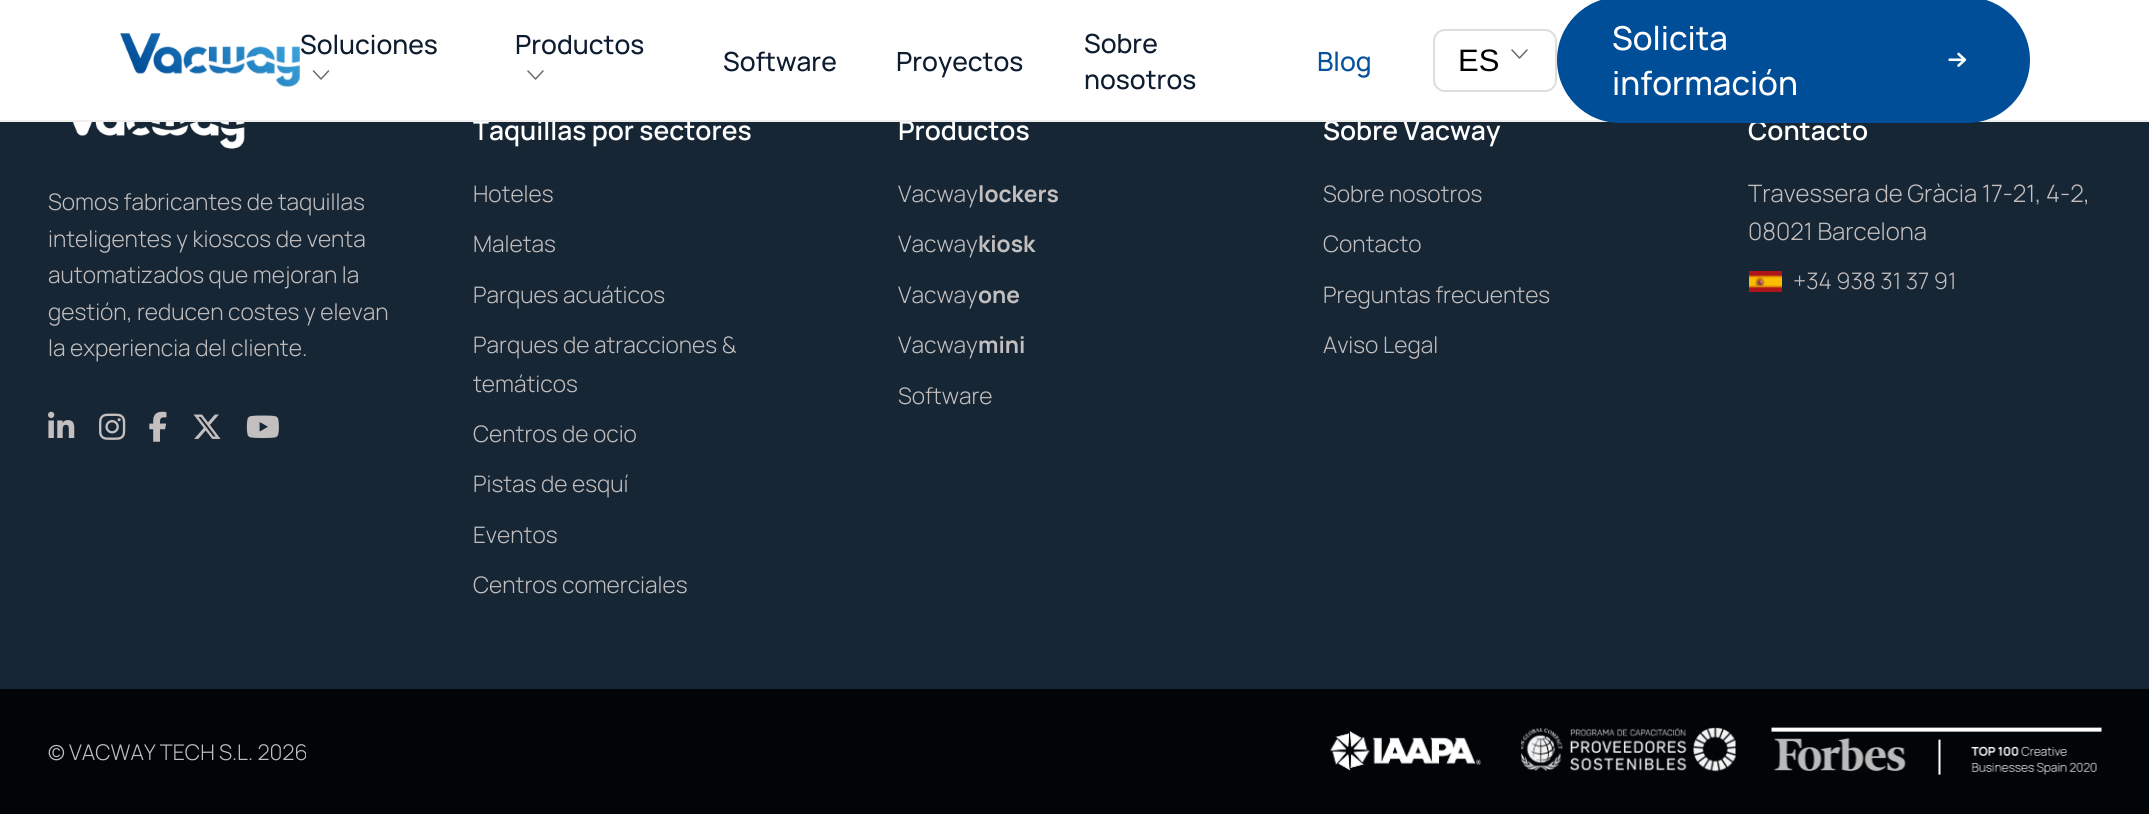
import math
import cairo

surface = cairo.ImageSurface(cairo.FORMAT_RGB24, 2149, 814)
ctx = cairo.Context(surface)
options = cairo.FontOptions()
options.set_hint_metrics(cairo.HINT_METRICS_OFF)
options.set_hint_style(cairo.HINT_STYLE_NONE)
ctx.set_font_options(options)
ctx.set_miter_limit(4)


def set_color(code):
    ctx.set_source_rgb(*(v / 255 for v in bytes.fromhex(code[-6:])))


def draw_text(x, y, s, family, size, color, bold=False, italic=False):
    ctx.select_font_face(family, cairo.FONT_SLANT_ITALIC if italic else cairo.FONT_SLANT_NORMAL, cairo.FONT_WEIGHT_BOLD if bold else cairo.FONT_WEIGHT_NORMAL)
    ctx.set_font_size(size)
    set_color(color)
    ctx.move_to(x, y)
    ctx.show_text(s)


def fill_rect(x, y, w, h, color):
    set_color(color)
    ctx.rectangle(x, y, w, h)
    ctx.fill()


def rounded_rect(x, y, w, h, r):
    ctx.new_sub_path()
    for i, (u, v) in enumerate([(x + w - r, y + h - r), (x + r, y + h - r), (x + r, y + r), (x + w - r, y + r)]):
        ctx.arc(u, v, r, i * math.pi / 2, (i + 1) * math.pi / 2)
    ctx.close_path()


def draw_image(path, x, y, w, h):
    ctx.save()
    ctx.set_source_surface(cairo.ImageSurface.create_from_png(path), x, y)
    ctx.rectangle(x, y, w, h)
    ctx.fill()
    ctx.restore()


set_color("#172635")
ctx.paint()
fill_rect(0, 0, 2149, 120, "#ffffff")
draw_text(473, 140, "Taquillas por sectores", "Manrope SemiBold", 26.4, "#ffffff")
draw_text(898, 140, "Productos", "Manrope SemiBold", 26.4, "#ffffff")
draw_text(1323, 140, "Sobre Vacway", "Manrope SemiBold", 26.4, "#ffffff")
draw_text(1748, 140, "Contacto", "Manrope SemiBold", 26.4, "#ffffff")
fill_rect(0, 120, 2149, 2, "#eeeeee")
draw_image("assets/img1.png", 120, 33, 180, 54)
draw_text(300, 54, "Soluciones", "Manrope Medium", 26.4, "#0e1c2f")
ctx.new_path()
ctx.move_to(328.5, 71)
ctx.line_to(321, 79)
ctx.line_to(313.5, 71)
set_color("#6b6b6b")
ctx.set_line_width(1.5)
ctx.set_line_cap(cairo.LINE_CAP_ROUND)
ctx.set_line_join(cairo.LINE_JOIN_ROUND)
ctx.stroke()
draw_text(515, 54, "Productos", "Manrope Medium", 26.4, "#0e1c2f")
ctx.new_path()
ctx.move_to(543, 71)
ctx.line_to(535.5, 79)
ctx.line_to(528, 71)
set_color("#6b6b6b")
ctx.stroke()
draw_text(1084, 53, "Sobre", "Manrope Medium", 26.4, "#0e1c2f")
draw_text(1084, 89, "nosotros", "Manrope Medium", 26.4, "#0e1c2f")
draw_text(723, 71, "Software", "Manrope Medium", 26.4, "#0e1c2f")
draw_text(896, 71, "Proyectos", "Manrope Medium", 26.4, "#0e1c2f")
draw_text(1317, 71, "Blog", "Manrope Medium", 26.4, "#07529b")
rounded_rect(1434, 30, 122, 61, 11)
set_color("#dddddd")
ctx.set_line_width(2)
ctx.set_line_cap(cairo.LINE_CAP_BUTT)
ctx.set_line_join(cairo.LINE_JOIN_MITER)
ctx.stroke()
draw_text(1458, 71, "ES", "Liberation Sans", 31, "#000000")
ctx.new_path()
ctx.move_to(1527, 50)
ctx.line_to(1519.5, 58)
ctx.line_to(1512, 50)
set_color("#6b6b6b")
ctx.set_line_width(1.5)
ctx.set_line_cap(cairo.LINE_CAP_ROUND)
ctx.set_line_join(cairo.LINE_JOIN_ROUND)
ctx.stroke()
set_color("#004d98")
rounded_rect(1557, -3, 473, 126, 63)
ctx.fill()
draw_text(1612, 50, "Solicita", "Manrope Medium", 33, "#ffffff")
draw_image("assets/img2.png", 1948, 52, 19, 15)
draw_text(1612, 95, "información", "Manrope Medium", 33, "#ffffff")
draw_image("assets/img3.png", 72, 122, 173, 27)
draw_text(48, 210, "Somos fabricantes de taquillas", "Manrope Light", 22.75, "#c3bfbf")
draw_text(48, 247, "inteligentes y kioscos de venta", "Manrope Light", 22.75, "#c3bfbf")
draw_text(48, 283, "automatizados que mejoran la", "Manrope Light", 22.75, "#c3bfbf")
draw_text(48, 320, "gestión, reducen costes y elevan", "Manrope Light", 22.75, "#c3bfbf")
draw_text(48, 356, "la experiencia del cliente.", "Manrope Light", 22.75, "#c3bfbf")
draw_image("assets/img4.png", 48, 411, 27, 27)
draw_image("assets/img5.png", 99, 413, 27, 27)
draw_image("assets/img6.png", 149, 411, 18, 31)
draw_image("assets/img7.png", 193, 414, 28, 25)
draw_image("assets/img8.png", 246, 415, 33, 23)
draw_text(473, 202, "Hoteles", "Manrope Light", 22.75, "#c3bfbf")
draw_text(473, 252, "Maletas", "Manrope Light", 22.75, "#c3bfbf")
draw_text(473, 303, "Parques acuáticos", "Manrope Light", 22.75, "#c3bfbf")
draw_text(473, 353, "Parques de atracciones &", "Manrope Light", 22.75, "#c3bfbf")
draw_text(473, 392, "temáticos", "Manrope Light", 22.75, "#c3bfbf")
draw_text(473, 442, "Centros de ocio", "Manrope Light", 22.75, "#c3bfbf")
draw_text(473, 492, "Pistas de esquí", "Manrope Light", 22.75, "#c3bfbf")
draw_text(473, 543, "Eventos", "Manrope Light", 22.75, "#c3bfbf")
draw_text(473, 593, "Centros comerciales", "Manrope Light", 22.75, "#c3bfbf")
draw_text(898, 202, "Vacway", "Manrope Light", 22.75, "#c3bfbf")
draw_text(978, 202, "lockers", "Manrope", 22.75, "#c3bfbf", bold=True)
draw_text(898, 252, "Vacway", "Manrope Light", 22.75, "#c3bfbf")
draw_text(978, 252, "kiosk", "Manrope", 22.75, "#c3bfbf", bold=True)
draw_text(898, 303, "Vacway", "Manrope Light", 22.75, "#c3bfbf")
draw_text(978, 303, "one", "Manrope", 22.75, "#c3bfbf", bold=True)
draw_text(898, 353, "Vacway", "Manrope Light", 22.75, "#c3bfbf")
draw_text(978, 353, "mini", "Manrope", 22.75, "#c3bfbf", bold=True)
draw_text(898, 404, "Software", "Manrope Light", 22.75, "#c3bfbf")
draw_text(1323, 202, "Sobre nosotros", "Manrope Light", 22.75, "#c3bfbf")
draw_text(1323, 252, "Contacto", "Manrope Light", 22.75, "#c3bfbf")
draw_text(1323, 303, "Preguntas frecuentes", "Manrope Light", 22.75, "#c3bfbf")
draw_text(1323, 353, "Aviso Legal", "Manrope Light", 22.75, "#c3bfbf")
draw_text(1748, 202, "Travessera de Gràcia 17-21, 4-2,", "Manrope Light", 24, "#c3bfbf")
draw_text(1748, 240, "08021 Barcelona", "Manrope Light", 24, "#c3bfbf")
draw_image("assets/img9.png", 1749, 271, 33, 21)
draw_text(1793, 289, "+34 938 31 37 91", "Manrope Light", 22.75, "#c3bfbf")
fill_rect(0, 689, 2149, 125, "#010508")
draw_text(48, 760, "© VACWAY TECH S.L. 2026", "Manrope Light", 21.6, "#c3bfbf")
draw_image("assets/img10.png", 1330, 731, 151, 40)
draw_image("assets/img11.png", 1521, 727, 215, 45)
draw_image("assets/img12.png", 1771, 727, 331, 48)
surface.write_to_png("output.png")
